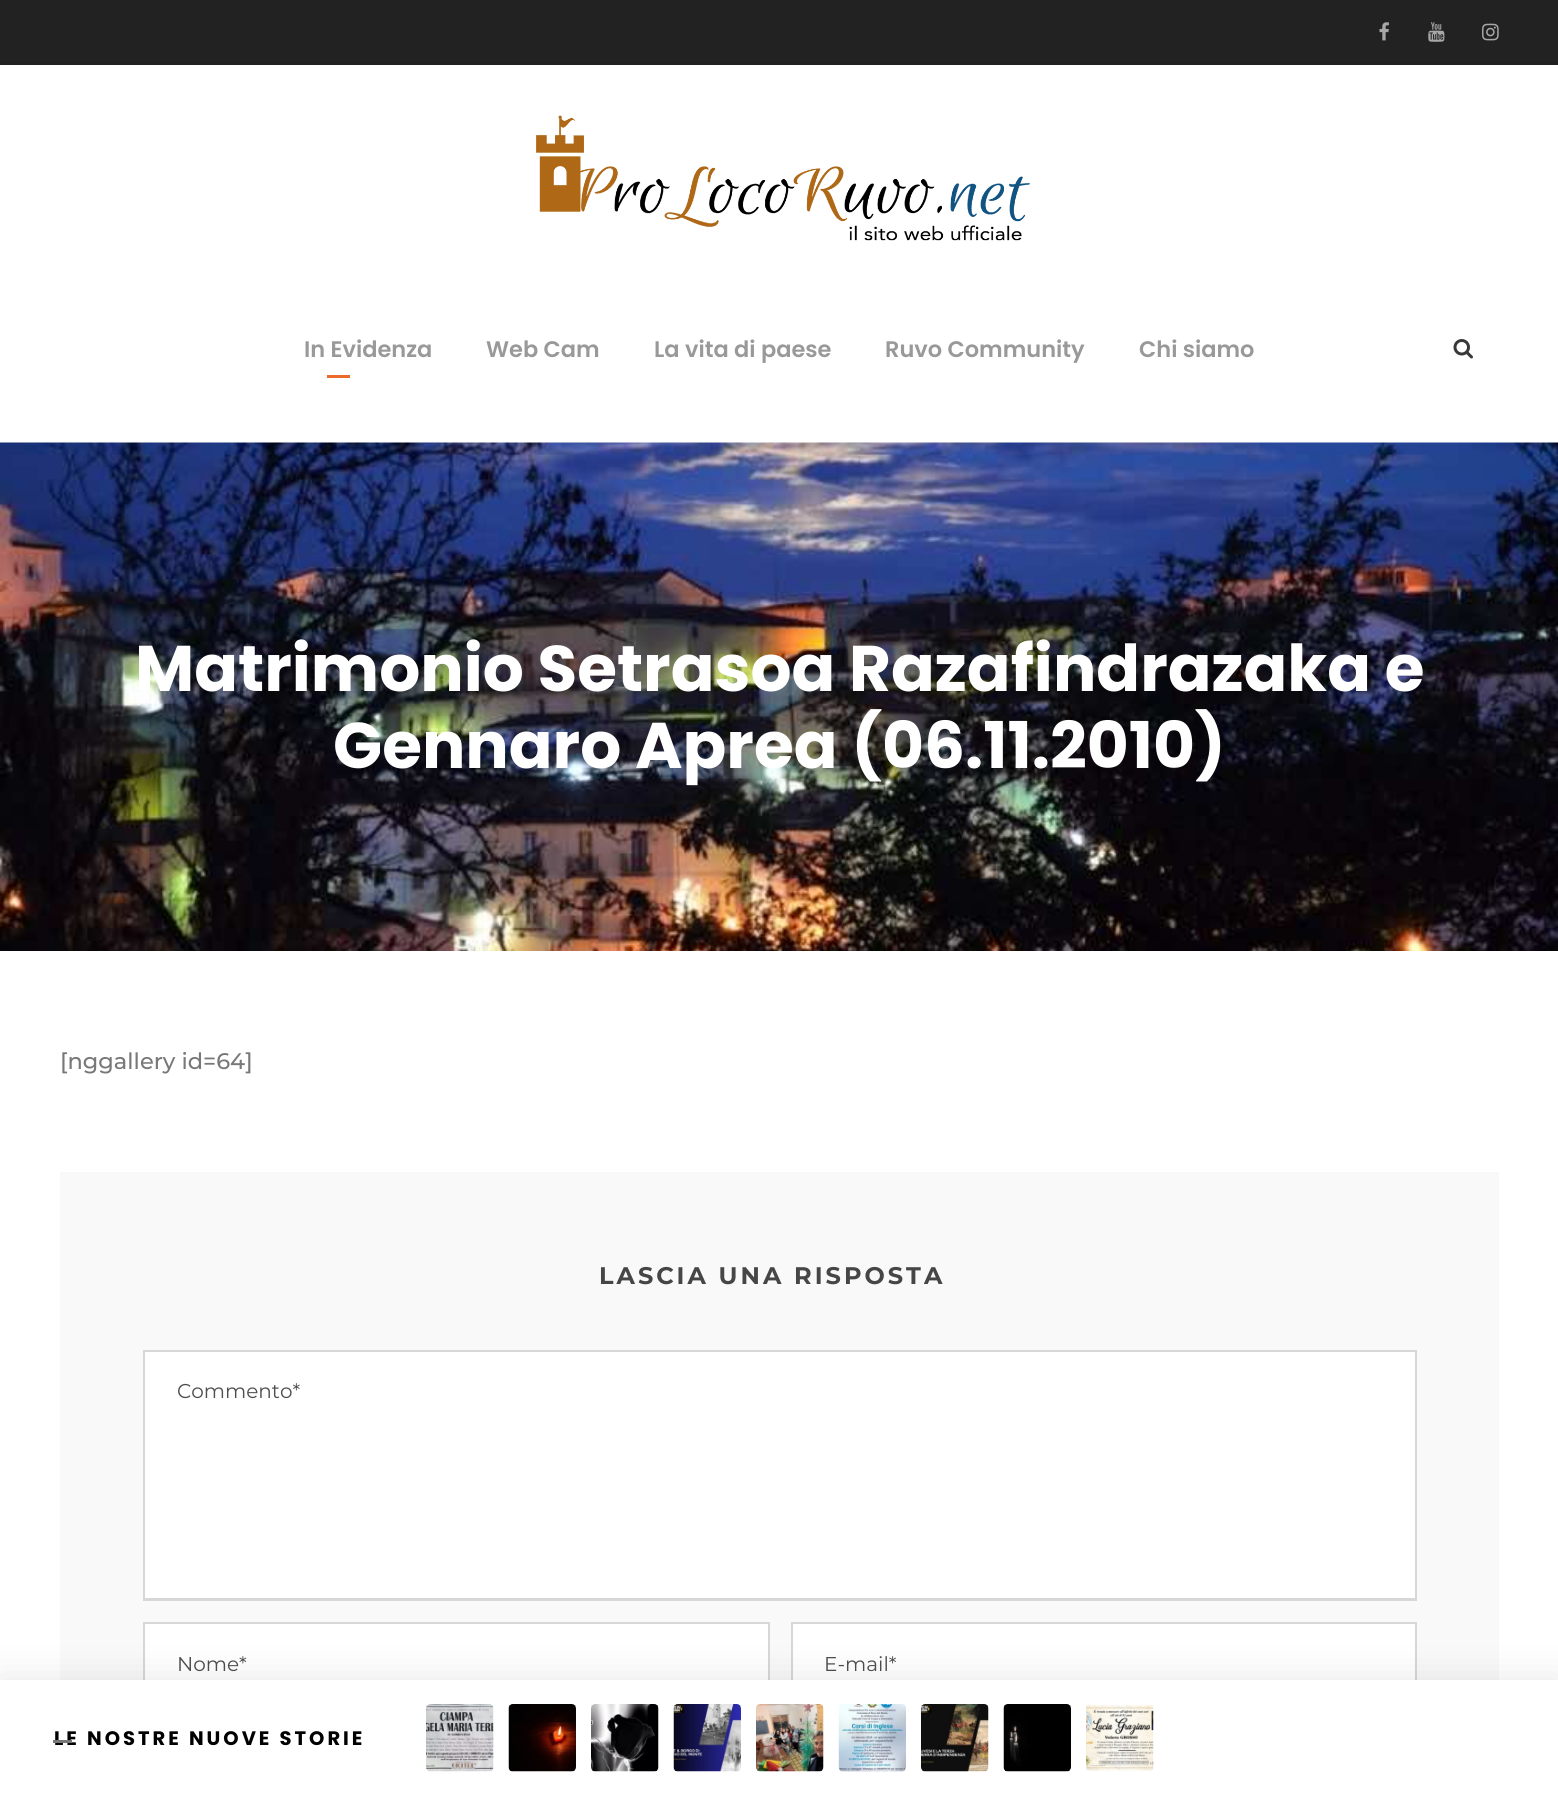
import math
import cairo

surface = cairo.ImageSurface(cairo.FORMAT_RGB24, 1558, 1795)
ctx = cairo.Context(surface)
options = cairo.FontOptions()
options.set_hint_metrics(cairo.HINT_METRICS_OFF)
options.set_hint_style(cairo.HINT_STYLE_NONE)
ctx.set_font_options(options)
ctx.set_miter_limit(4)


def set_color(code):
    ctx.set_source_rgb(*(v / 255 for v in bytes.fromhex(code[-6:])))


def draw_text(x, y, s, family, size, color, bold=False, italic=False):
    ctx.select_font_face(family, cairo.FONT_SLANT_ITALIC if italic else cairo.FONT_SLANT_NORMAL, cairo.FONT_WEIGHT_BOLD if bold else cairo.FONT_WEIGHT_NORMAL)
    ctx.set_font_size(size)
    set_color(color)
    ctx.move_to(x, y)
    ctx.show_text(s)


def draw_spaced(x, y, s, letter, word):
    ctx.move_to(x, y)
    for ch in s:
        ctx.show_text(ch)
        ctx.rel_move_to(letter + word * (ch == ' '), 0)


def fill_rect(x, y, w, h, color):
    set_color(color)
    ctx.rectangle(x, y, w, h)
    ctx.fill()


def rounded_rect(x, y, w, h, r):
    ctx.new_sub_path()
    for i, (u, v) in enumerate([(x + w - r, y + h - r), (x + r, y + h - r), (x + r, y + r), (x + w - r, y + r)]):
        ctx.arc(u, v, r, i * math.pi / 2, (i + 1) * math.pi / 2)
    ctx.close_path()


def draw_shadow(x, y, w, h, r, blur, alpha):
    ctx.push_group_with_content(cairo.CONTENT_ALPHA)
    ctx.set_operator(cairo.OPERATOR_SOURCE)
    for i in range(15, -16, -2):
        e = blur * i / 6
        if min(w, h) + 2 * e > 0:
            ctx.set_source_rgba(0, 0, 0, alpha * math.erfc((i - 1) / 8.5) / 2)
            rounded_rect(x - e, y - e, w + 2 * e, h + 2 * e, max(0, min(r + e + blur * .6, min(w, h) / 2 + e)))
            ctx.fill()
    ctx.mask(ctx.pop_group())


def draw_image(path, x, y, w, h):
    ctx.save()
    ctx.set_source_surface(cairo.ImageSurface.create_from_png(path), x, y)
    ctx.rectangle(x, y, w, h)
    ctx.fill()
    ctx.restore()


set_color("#ffffff")
ctx.paint()
fill_rect(0, 0, 1558, 65, "#222222")
draw_image("assets/img1.png", 1379, 22, 10, 19)
draw_image("assets/img2.png", 1428, 22, 17, 20)
draw_image("assets/img3.png", 1482, 23, 17, 18)
set_color("#0a0a0a")
draw_shadow(0, 65, 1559, 378, 0, 3, 0.16)
fill_rect(0, 65, 1558, 378, "#ffffff")
draw_image("assets/img4.png", 536, 115, 494, 126)
draw_text(304, 357, "In Evidenza", "Poppins SemiBold", 22.5, "#999999")
draw_text(486, 357, "Web Cam", "Poppins SemiBold", 22.5, "#999999")
draw_text(654, 357, "La vita di paese", "Poppins SemiBold", 22.5, "#999999")
draw_text(885, 357, "Ruvo Community", "Poppins SemiBold", 22.5, "#999999")
draw_text(1139, 357, "Chi siamo", "Poppins SemiBold", 22.5, "#999999")
fill_rect(327, 375, 23, 3, "#ec6a2a")
draw_image("assets/img5.png", 1453, 339, 20, 20)
draw_image("assets/img6.png", 0, 442, 1558, 509)
draw_text(135, 691, "Matrimonio Setrasoa Razafindrazaka e", "Poppins", 64.5, "#ffffff", bold=True)
draw_text(333, 768, "Gennaro Aprea (06.11.2010)", "Poppins", 64.5, "#ffffff", bold=True)
draw_text(60, 1069, "[nggallery id=64]", "Montserrat Medium", 22.5, "#787878")
fill_rect(60, 1172, 1439, 508, "#f9f9f9")
ctx.select_font_face("Montserrat", cairo.FONT_SLANT_NORMAL, cairo.FONT_WEIGHT_BOLD)
ctx.set_font_size(24)
set_color("#464646")
draw_spaced(599, 1284, "LASCIA UNA RISPOSTA", 3, 0)
fill_rect(145, 1352, 1270, 246, "#ffffff")
fill_rect(143, 1350, 1273, 2, "#d7d7d7")
fill_rect(1415, 1350, 2, 251, "#d7d7d7")
fill_rect(143, 1598, 1273, 3, "#d7d7d7")
fill_rect(143, 1350, 2, 251, "#d7d7d7")
draw_text(177, 1398, "Commento*", "Montserrat Thin", 20, "#4e4e4e")
fill_rect(145, 1624, 623, 56, "#ffffff")
fill_rect(143, 1622, 627, 2, "#d7d7d7")
fill_rect(768, 1622, 2, 58, "#d7d7d7")
fill_rect(143, 1622, 2, 58, "#d7d7d7")
draw_text(177, 1671, "Nome*", "Montserrat Thin", 20, "#4e4e4e")
fill_rect(793, 1624, 622, 56, "#ffffff")
fill_rect(791, 1622, 625, 2, "#d7d7d7")
fill_rect(1415, 1622, 2, 58, "#d7d7d7")
fill_rect(791, 1622, 2, 58, "#d7d7d7")
draw_text(824, 1671, "E-mail*", "Montserrat Thin", 20, "#4e4e4e")
set_color("#000000")
draw_shadow(0, 1680, 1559, 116, 0, 19, 0.1)
fill_rect(0, 1680, 1558, 115, "#ffffff")
ctx.select_font_face("Poppins", cairo.FONT_SLANT_NORMAL, cairo.FONT_WEIGHT_BOLD)
ctx.set_font_size(19.5)
set_color("#000000")
draw_spaced(54, 1745, "LE NOSTRE NUOVE STORIE", 3, 0)
draw_image("assets/img7.png", 426, 1704, 68, 68)
draw_image("assets/img8.png", 508, 1704, 68, 68)
draw_image("assets/img9.png", 591, 1704, 68, 68)
draw_image("assets/img10.png", 673, 1704, 68, 68)
draw_image("assets/img11.png", 756, 1704, 68, 68)
draw_image("assets/img12.png", 838, 1704, 68, 68)
draw_image("assets/img13.png", 921, 1704, 68, 68)
draw_image("assets/img14.png", 1003, 1704, 68, 68)
draw_image("assets/img15.png", 1086, 1704, 68, 67)
fill_rect(53, 1740, 19, 3, "#787878")
surface.write_to_png("output.png")
